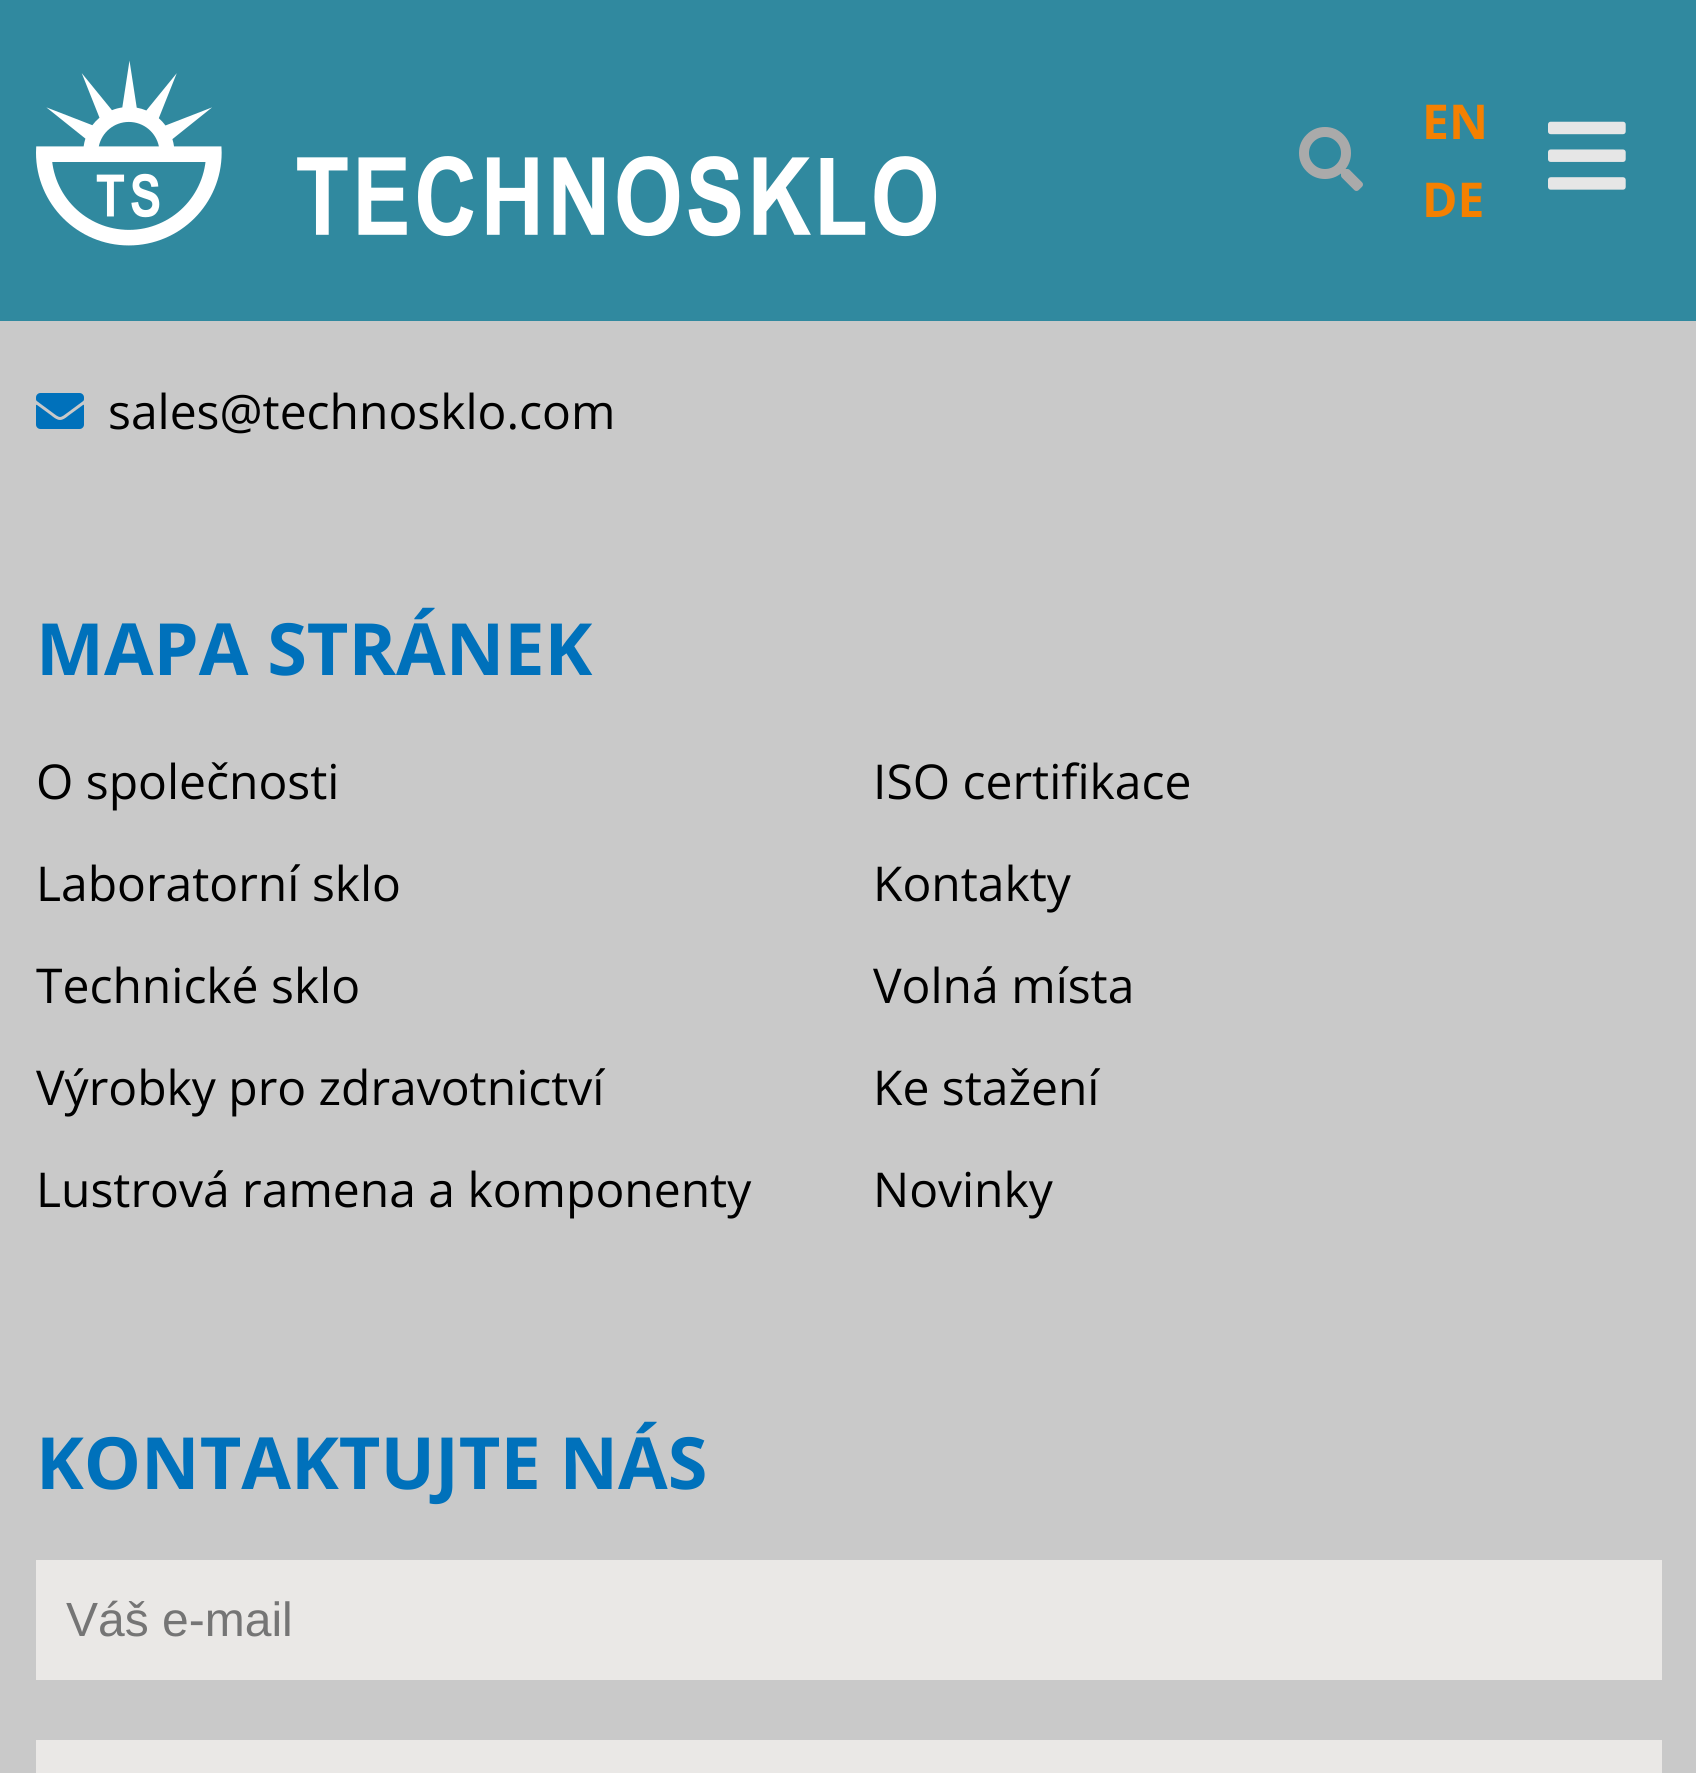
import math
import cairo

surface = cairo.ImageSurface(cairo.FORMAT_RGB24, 1696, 1773)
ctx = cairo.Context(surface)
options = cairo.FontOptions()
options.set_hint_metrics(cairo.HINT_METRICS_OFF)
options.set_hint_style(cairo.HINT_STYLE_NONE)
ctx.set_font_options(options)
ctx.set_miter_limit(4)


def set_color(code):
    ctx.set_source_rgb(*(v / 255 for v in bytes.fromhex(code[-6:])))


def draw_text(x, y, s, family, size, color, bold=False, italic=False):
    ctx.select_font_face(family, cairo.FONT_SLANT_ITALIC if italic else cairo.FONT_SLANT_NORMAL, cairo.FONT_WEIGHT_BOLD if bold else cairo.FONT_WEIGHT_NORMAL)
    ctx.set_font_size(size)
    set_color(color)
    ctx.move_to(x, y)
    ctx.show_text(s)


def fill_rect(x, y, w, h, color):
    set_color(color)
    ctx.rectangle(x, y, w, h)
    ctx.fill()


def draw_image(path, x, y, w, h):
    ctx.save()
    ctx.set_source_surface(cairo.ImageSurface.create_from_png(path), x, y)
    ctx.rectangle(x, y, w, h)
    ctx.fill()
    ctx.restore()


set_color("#c9c9c9")
ctx.paint()
fill_rect(0, 0, 1696, 321, "#30899f")
draw_image("assets/img1.png", 36, 60, 900, 186)
draw_image("assets/img2.png", 1299, 127, 64, 64)
draw_text(1422, 139, "EN", "Open Sans", 48, "#f58000", bold=True)
draw_text(1422, 217, "DE", "Open Sans", 48, "#f58000", bold=True)
draw_image("assets/img3.png", 1548, 121, 78, 69)
draw_image("assets/img4.png", 36, 393, 48, 36)
draw_text(108, 429, "sales@technosklo.com", "Open Sans", 48, "#000000")
draw_text(36, 675, "MAPA STRÁNEK", "Open Sans", 72, "#0071bb", bold=True)
draw_text(36, 799, "O společnosti", "Open Sans", 48, "#000000")
draw_text(873, 799, "ISO certifikace", "Open Sans", 48, "#000000")
draw_text(36, 901, "Laboratorní sklo", "Open Sans", 48, "#000000")
draw_text(873, 901, "Kontakty", "Open Sans", 48, "#000000")
draw_text(36, 1003, "Technické sklo", "Open Sans", 48, "#000000")
draw_text(873, 1003, "Volná místa", "Open Sans", 48, "#000000")
draw_text(36, 1105, "Výrobky pro zdravotnictví", "Open Sans", 48, "#000000")
draw_text(873, 1105, "Ke stažení", "Open Sans", 48, "#000000")
draw_text(36, 1207, "Lustrová ramena a komponenty", "Open Sans", 48, "#000000")
draw_text(873, 1207, "Novinky", "Open Sans", 48, "#000000")
draw_text(36, 1489, "KONTAKTUJTE NÁS", "Open Sans", 72, "#0071bb", bold=True)
fill_rect(36, 1560, 1626, 120, "#eae8e6")
draw_text(66, 1636, "Váš e-mail", "Liberation Sans", 48, "#757575")
fill_rect(36, 1740, 1626, 33, "#eae8e6")
surface.write_to_png("output.png")
